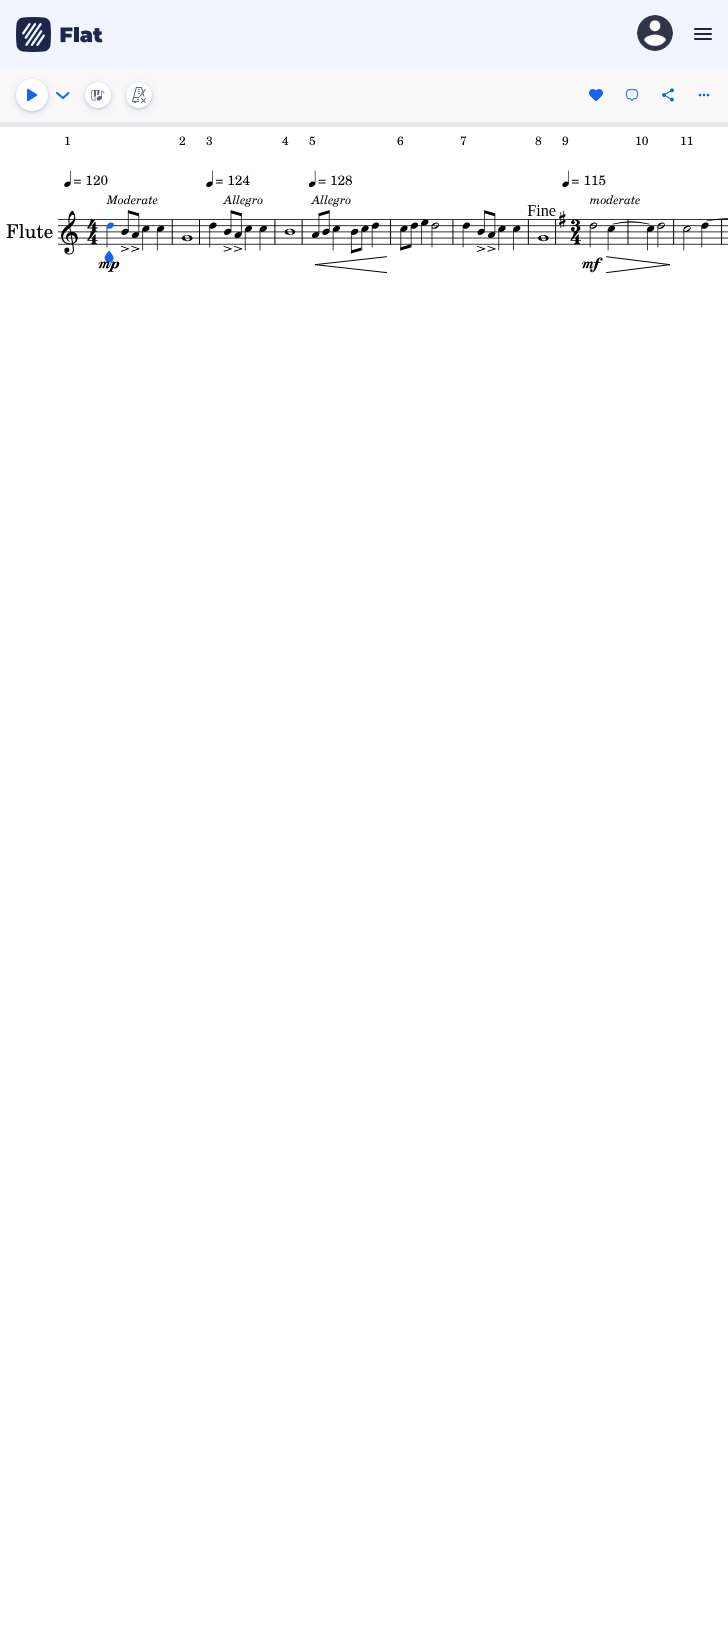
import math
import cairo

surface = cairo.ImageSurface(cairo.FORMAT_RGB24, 728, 1638)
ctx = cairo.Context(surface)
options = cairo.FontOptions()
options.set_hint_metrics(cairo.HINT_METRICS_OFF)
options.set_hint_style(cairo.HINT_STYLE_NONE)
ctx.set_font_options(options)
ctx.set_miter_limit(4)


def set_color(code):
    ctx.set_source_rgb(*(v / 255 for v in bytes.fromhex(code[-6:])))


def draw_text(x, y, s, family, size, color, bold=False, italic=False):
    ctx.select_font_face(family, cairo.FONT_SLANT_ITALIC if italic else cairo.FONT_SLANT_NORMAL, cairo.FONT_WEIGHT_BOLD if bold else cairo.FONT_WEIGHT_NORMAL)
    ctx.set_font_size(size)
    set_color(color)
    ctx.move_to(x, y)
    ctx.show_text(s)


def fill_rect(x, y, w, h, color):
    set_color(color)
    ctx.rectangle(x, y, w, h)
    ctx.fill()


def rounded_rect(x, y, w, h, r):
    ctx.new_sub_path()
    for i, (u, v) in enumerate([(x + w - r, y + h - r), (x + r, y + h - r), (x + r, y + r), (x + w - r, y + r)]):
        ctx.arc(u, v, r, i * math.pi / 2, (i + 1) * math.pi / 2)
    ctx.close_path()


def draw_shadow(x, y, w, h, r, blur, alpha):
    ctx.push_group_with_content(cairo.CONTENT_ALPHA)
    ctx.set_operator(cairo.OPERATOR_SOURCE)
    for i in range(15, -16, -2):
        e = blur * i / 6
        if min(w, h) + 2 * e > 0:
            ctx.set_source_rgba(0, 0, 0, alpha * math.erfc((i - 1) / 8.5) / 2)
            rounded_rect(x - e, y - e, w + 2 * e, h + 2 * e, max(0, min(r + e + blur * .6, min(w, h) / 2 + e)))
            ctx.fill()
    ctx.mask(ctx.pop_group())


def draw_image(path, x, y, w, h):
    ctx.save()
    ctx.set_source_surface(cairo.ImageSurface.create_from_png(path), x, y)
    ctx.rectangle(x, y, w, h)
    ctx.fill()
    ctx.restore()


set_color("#ffffff")
ctx.paint()
fill_rect(0, 0, 728, 68, "#f1f6fe")
draw_image("assets/img1.png", 16, 17, 87, 35)
set_color("#ffffff")
ctx.arc(655, 33, 18, 0, 2 * math.pi)
ctx.fill()
draw_image("assets/img2.png", 637, 15, 36, 36)
set_color("#1c264a")
rounded_rect(694, 28, 18, 2, 1)
ctx.fill()
rounded_rect(694, 33, 18, 2, 1)
ctx.fill()
rounded_rect(694, 38, 18, 2, 1)
ctx.fill()
fill_rect(0, 68, 728, 54, "#f9f9fa")
set_color("#28304f")
draw_shadow(16, 80, 32, 32, 16, 1.5, 0.2)
draw_shadow(16, 81, 32, 32, 16, 4, 0.1)
set_color("#ffffff")
ctx.arc(32, 95, 16, 0, 2 * math.pi)
ctx.fill()
draw_image("assets/img3.png", 27, 88, 11, 14)
ctx.new_path()
ctx.move_to(57, 93)
ctx.line_to(63, 98)
ctx.line_to(68.5, 93)
set_color("#1565ef")
ctx.set_line_cap(cairo.LINE_CAP_ROUND)
ctx.set_line_join(cairo.LINE_JOIN_ROUND)
ctx.stroke()
set_color("#28304f")
draw_shadow(85, 83, 26, 26, 13, 1.5, 0.2)
draw_shadow(85, 84, 26, 26, 13, 4, 0.1)
set_color("#ffffff")
ctx.arc(98, 95, 13, 0, 2 * math.pi)
ctx.fill()
draw_image("assets/img4.png", 91, 89, 14, 12)
set_color("#28304f")
draw_shadow(126, 83, 26, 26, 13, 1.5, 0.2)
draw_shadow(126, 84, 26, 26, 13, 4, 0.1)
set_color("#ffffff")
ctx.arc(139, 95, 13, 0, 2 * math.pi)
ctx.fill()
draw_image("assets/img5.png", 132, 87, 14, 16)
draw_image("assets/img6.png", 589, 89, 14, 12)
draw_image("assets/img7.png", 626, 89, 12, 12)
draw_image("assets/img8.png", 662, 88, 12, 14)
draw_image("assets/img9.png", 698, 93, 12, 4)
fill_rect(0, 122, 728, 5, "#e7e8ec")
draw_text(64, 145, "1", "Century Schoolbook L", 12, "#000000")
draw_text(179, 145, "2", "Century Schoolbook L", 12, "#000000")
draw_text(206, 145, "3", "Century Schoolbook L", 12, "#000000")
draw_text(282, 145, "4", "Century Schoolbook L", 12, "#000000")
draw_text(309, 145, "5", "Century Schoolbook L", 12, "#000000")
draw_text(397, 145, "6", "Century Schoolbook L", 12, "#000000")
draw_text(460, 145, "7", "Century Schoolbook L", 12, "#000000")
draw_text(535, 145, "8", "Century Schoolbook L", 12, "#000000")
draw_text(562, 145, "9", "Century Schoolbook L", 12, "#000000")
draw_text(635, 145, "10", "Century Schoolbook L", 12, "#000000")
draw_text(680, 145, "11", "Century Schoolbook L", 12, "#000000")
draw_image("assets/img10.png", 58, 170, 670, 104)
draw_text(6, 238, "Flute", "Century Schoolbook L", 19, "#000000")
surface.write_to_png("output.png")
